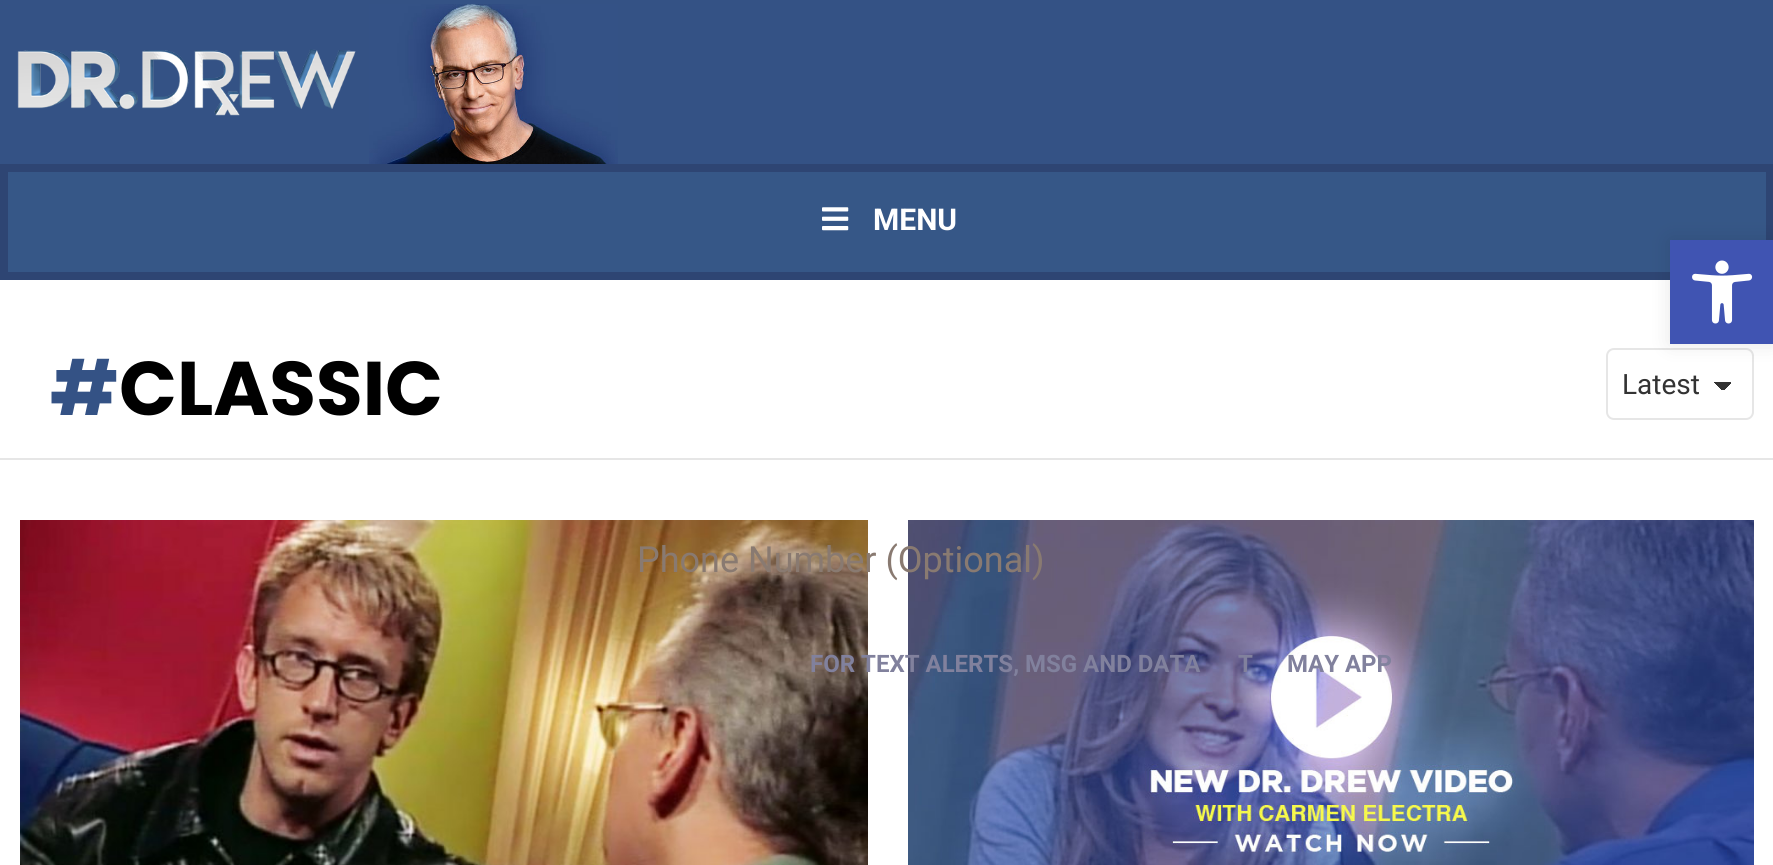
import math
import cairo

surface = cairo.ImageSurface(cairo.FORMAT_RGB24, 1773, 865)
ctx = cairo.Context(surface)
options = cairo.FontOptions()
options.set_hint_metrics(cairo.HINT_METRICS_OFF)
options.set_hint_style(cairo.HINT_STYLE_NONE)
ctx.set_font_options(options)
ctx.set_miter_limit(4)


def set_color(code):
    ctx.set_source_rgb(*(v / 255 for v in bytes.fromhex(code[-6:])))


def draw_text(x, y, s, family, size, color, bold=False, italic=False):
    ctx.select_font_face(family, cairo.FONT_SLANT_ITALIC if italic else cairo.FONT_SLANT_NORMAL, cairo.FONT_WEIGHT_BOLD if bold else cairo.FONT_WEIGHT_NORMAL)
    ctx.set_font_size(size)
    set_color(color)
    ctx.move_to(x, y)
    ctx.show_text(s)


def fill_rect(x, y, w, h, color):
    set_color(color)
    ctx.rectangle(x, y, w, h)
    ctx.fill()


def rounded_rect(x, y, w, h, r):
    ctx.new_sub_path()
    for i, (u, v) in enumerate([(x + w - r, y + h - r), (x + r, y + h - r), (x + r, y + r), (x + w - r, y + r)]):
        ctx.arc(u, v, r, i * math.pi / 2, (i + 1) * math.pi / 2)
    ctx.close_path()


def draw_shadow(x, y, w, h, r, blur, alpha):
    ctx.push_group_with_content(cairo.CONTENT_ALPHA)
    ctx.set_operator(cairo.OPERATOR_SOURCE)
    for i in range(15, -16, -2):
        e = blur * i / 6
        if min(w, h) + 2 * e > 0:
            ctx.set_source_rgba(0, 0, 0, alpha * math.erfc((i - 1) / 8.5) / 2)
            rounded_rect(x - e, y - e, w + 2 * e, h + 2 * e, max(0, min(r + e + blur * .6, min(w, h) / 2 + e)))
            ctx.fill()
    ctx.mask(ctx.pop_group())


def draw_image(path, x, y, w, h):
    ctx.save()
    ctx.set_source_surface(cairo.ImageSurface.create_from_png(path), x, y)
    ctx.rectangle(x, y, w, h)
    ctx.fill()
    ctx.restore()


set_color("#ffffff")
ctx.paint()
fill_rect(0, 0, 1773, 164, "#345285")
draw_image("assets/img1.png", 17, 49, 339, 67)
draw_image("assets/img2.png", 369, 4, 249, 160)
fill_rect(0, 164, 1773, 116, "#2e4573")
fill_rect(8, 172, 1758, 100, "#365787")
draw_image("assets/img3.png", 822, 207, 27, 24)
draw_text(873, 230, "MENU", "Roboto", 30, "#ffffff", bold=True)
gradient = cairo.LinearGradient(1723, 382, 1732, 391)
gradient.add_color_stop_rgba(0.5, 0.2, 0.2, 0.2, 1)
gradient.add_color_stop_rgba(0.5, 1, 1, 1, 1)
ctx.set_source(gradient)
ctx.rectangle(1722, 382, 10, 8)
ctx.fill()
gradient = cairo.LinearGradient(1713, 391, 1722, 382)
gradient.add_color_stop_rgba(0.5, 1, 1, 1, 1)
gradient.add_color_stop_rgba(0.5, 0.2, 0.2, 0.2, 1)
ctx.set_source(gradient)
ctx.rectangle(1712, 382, 10, 8)
ctx.fill()
rounded_rect(1607, 349, 146, 70, 7)
set_color("#e6e6e6")
ctx.stroke()
set_color("#000000")
draw_shadow(1670, 240, 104, 104, 0, 10, 0.1)
fill_rect(1670, 240, 103, 104, "#4054b2")
draw_image("assets/img4.png", 1692, 260, 61, 64)
draw_text(50, 415, "#", "Poppins", 76, "#345285", bold=True)
draw_text(119, 415, "CLASSIC", "Poppins", 76, "#000000", bold=True)
draw_text(1622, 394, "Latest", "Roboto", 28, "#333333")
fill_rect(0, 458, 1773, 2, "#e6e6e6")
draw_image("assets/img5.png", 20, 520, 848, 345)
draw_image("assets/img6.png", 908, 520, 846, 345)
draw_text(637, 572, "Phone Number (Optional)", "Roboto", 36, "#897a71")
draw_text(810, 672, "FOR TEXT ALERTS, MSG AND DATA", "Roboto", 24, "#81819d", bold=True)
draw_text(1238, 672, "T", "Roboto", 24, "#81819d", bold=True)
draw_text(1287, 672, "MAY APP", "Roboto", 24, "#81819d", bold=True)
surface.write_to_png("output.png")
